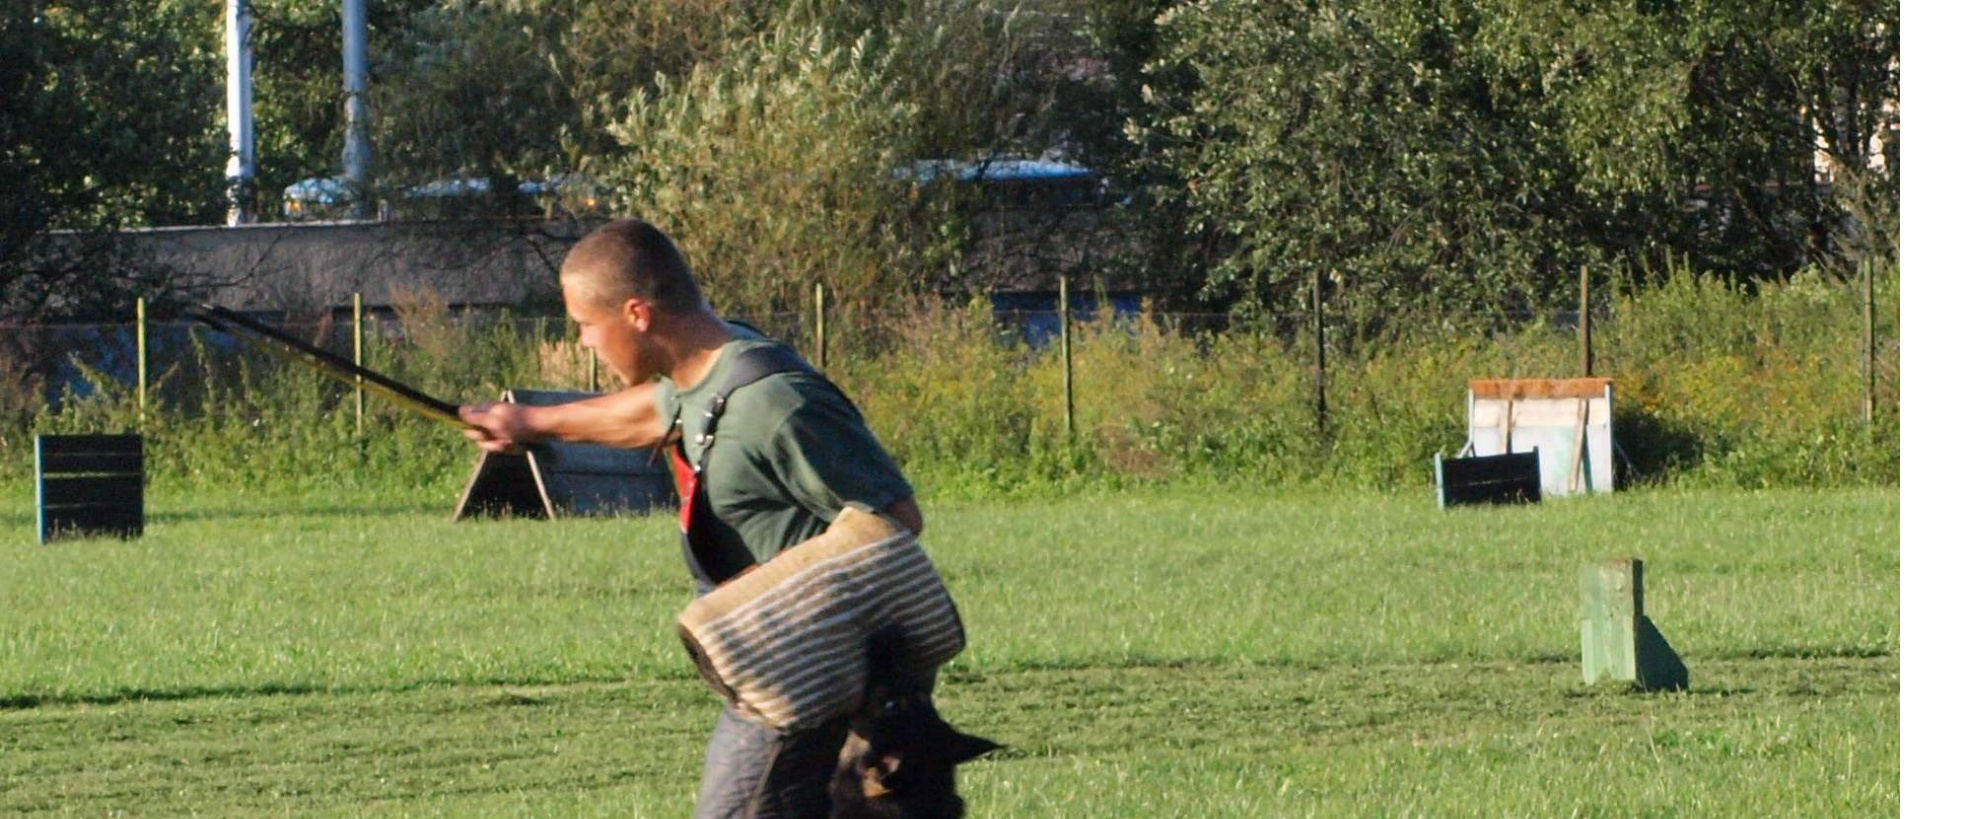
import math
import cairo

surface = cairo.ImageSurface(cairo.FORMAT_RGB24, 1984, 819)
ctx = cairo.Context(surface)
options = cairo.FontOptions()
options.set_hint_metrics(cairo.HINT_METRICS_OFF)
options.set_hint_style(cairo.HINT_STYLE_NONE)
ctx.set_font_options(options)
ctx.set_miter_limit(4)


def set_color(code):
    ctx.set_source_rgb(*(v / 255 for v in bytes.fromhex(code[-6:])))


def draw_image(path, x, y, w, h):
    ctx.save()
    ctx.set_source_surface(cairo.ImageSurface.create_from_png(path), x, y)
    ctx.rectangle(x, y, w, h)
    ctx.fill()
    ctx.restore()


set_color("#ffffff")
ctx.paint()
draw_image("assets/img1.png", 0, 0, 1900, 819)
surface.write_to_png("output.png")
